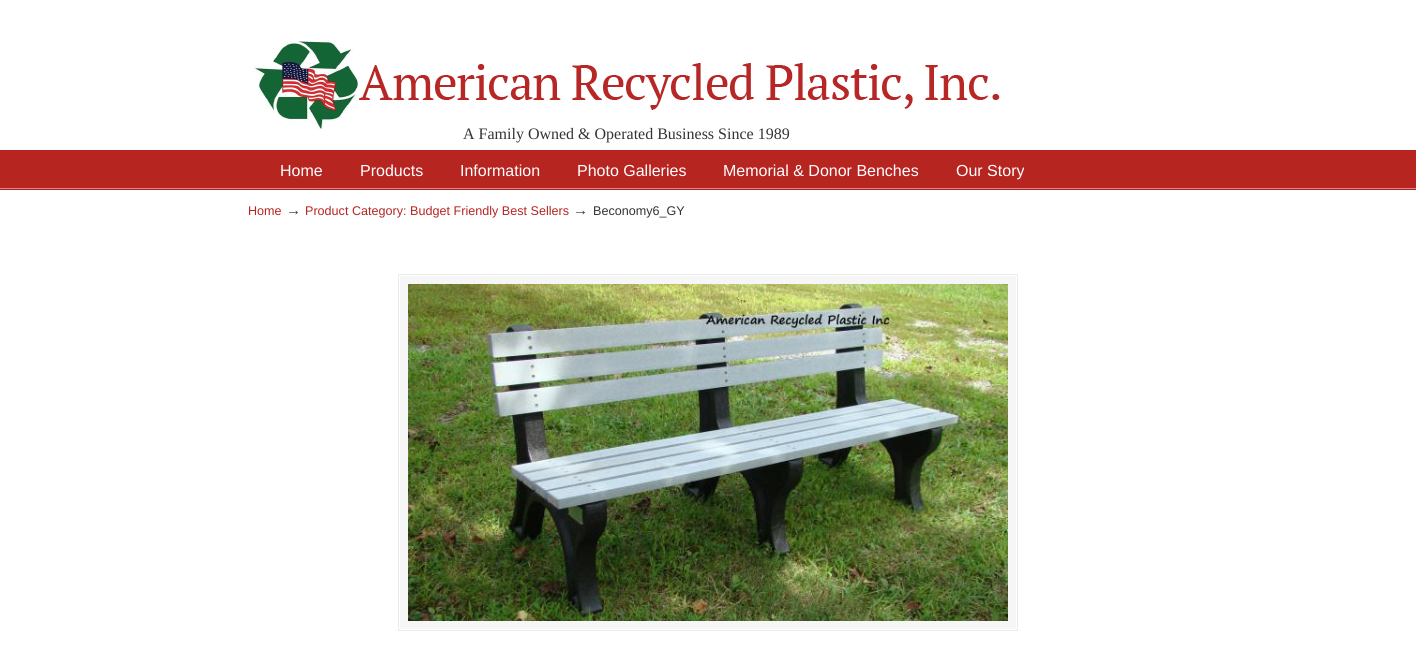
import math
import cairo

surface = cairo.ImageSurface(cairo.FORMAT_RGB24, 1416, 651)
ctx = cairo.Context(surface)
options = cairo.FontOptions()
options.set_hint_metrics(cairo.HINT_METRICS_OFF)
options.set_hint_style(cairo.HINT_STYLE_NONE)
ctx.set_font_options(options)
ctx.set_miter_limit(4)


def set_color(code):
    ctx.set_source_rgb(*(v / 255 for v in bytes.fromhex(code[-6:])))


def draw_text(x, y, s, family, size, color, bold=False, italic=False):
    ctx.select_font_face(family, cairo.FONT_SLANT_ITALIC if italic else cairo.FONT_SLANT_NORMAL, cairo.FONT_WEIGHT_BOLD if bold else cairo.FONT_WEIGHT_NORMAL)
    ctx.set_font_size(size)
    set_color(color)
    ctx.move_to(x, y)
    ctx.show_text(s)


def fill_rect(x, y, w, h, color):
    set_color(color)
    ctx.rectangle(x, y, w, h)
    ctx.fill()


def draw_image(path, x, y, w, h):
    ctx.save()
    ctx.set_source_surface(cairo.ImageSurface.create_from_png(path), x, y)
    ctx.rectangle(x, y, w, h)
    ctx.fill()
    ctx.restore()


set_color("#ffffff")
ctx.paint()
draw_text(463, 139, "A Family Owned & Operated Business Since 1989", "Liberation Serif", 16, "#333333")
draw_image("assets/img1.png", 253, 41, 747, 89)
fill_rect(0, 150, 1416, 40, "#b72521")
draw_image("assets/img2.png", 0, 188, 1416, 2)
draw_text(280, 176, "Home", "Liberation Sans", 16, "#ffffff")
draw_text(360, 176, "Products", "Liberation Sans", 16, "#ffffff")
draw_text(460, 176, "Information", "Liberation Sans", 16, "#ffffff")
draw_text(577, 176, "Photo Galleries", "Liberation Sans", 16, "#ffffff")
draw_text(723, 176, "Memorial & Donor Benches", "Liberation Sans", 16, "#ffffff")
draw_text(956, 176, "Our Story", "Liberation Sans", 16, "#ffffff")
draw_text(248, 215, "Home", "Liberation Sans", 12.6, "#b72521")
draw_text(286, 215, "→", "Liberation Sans", 15, "#333333")
draw_text(305, 215, "Product Category: Budget Friendly Best Sellers", "Liberation Sans", 12.6, "#b72521")
draw_text(573, 215, "→", "Liberation Sans", 15, "#333333")
draw_text(593, 215, "Beconomy6_GY", "Liberation Sans", 12.6, "#333333")
fill_rect(400, 276, 616, 353, "#f6f6f6")
ctx.rectangle(398.5, 274.5, 619, 356)
set_color("#eaeaea")
ctx.set_line_width(1)
ctx.stroke()
draw_image("assets/img3.png", 408, 284, 600, 337)
surface.write_to_png("output.png")
